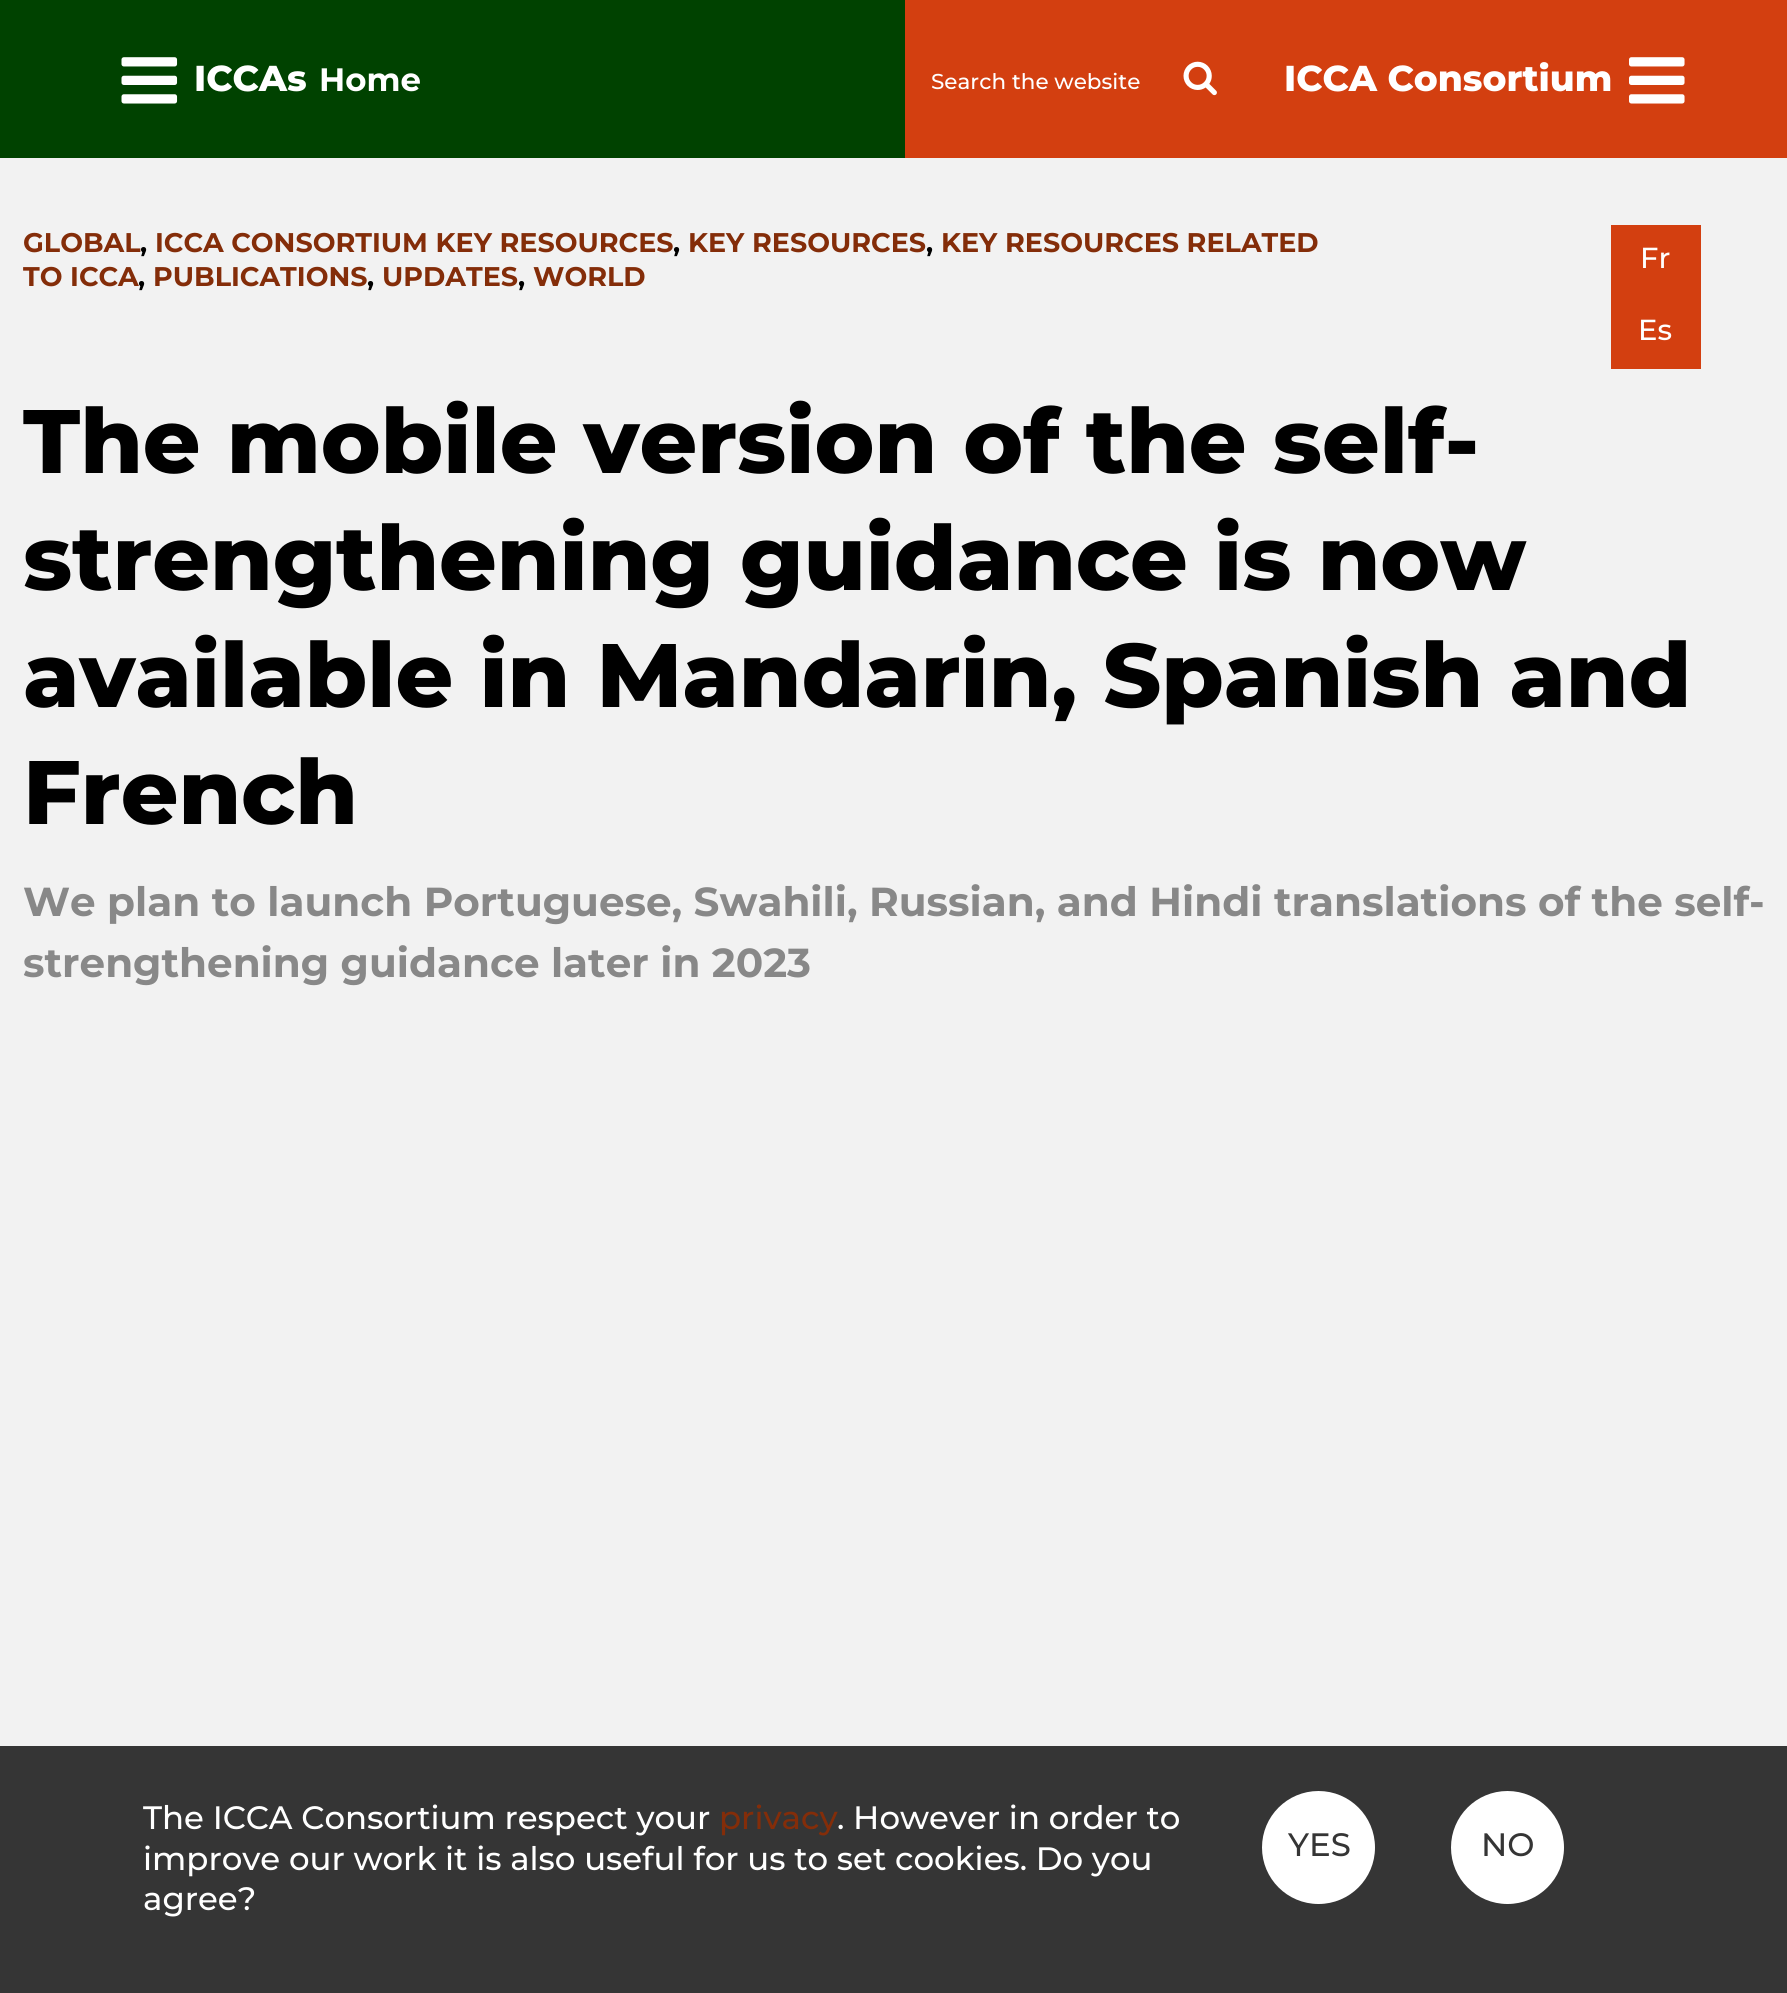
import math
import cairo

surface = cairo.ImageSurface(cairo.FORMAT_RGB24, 1787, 1993)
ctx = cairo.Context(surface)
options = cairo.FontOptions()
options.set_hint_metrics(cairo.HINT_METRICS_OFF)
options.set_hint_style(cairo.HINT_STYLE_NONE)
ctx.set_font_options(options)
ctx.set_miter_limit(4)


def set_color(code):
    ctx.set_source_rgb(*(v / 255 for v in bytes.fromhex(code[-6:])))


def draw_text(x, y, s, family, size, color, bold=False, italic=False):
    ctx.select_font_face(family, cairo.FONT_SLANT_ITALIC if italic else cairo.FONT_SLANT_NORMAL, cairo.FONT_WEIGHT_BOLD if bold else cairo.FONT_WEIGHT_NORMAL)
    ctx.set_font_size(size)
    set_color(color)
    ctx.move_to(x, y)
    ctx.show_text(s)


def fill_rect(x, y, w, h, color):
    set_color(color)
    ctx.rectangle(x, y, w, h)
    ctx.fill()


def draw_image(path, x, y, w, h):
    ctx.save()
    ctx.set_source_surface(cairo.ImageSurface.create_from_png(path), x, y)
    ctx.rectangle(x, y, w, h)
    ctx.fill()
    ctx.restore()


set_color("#f2f2f2")
ctx.paint()
fill_rect(0, 0, 905, 158, "#004200")
draw_image("assets/img1.png", 121, 57, 57, 47)
fill_rect(905, 0, 882, 158, "#d33f10")
draw_text(1284, 91, "ICCA Consortium", "Montserrat ExtraBold", 36, "#ffffff")
draw_image("assets/img2.png", 1629, 57, 56, 47)
draw_text(194, 91, "ICCAs", "Montserrat ExtraBold", 36, "#ffffff")
draw_text(319, 91, "Home", "Montserrat", 32.4, "#ffffff", bold=True)
draw_text(931, 89, "Search the website", "Montserrat Medium", 21.5, "#ffffff")
draw_image("assets/img3.png", 1183, 61, 34, 35)
draw_text(23, 252, "GLOBAL", "Montserrat", 27, "#842d09", bold=True)
draw_text(140, 252, ",", "Montserrat", 27, "#000000", bold=True)
draw_text(155, 252, "ICCA CONSORTIUM KEY RESOURCES", "Montserrat", 27, "#842d09", bold=True)
draw_text(673, 252, ",", "Montserrat", 27, "#000000", bold=True)
draw_text(688, 252, "KEY RESOURCES", "Montserrat", 27, "#842d09", bold=True)
draw_text(926, 252, ",", "Montserrat", 27, "#000000", bold=True)
draw_text(941, 252, "KEY RESOURCES RELATED", "Montserrat", 27, "#842d09", bold=True)
draw_text(23, 286, "TO ICCA", "Montserrat", 27, "#842d09", bold=True)
draw_text(138, 286, ",", "Montserrat", 27, "#000000", bold=True)
draw_text(153, 286, "PUBLICATIONS", "Montserrat", 27, "#842d09", bold=True)
draw_text(367, 286, ",", "Montserrat", 27, "#000000", bold=True)
draw_text(382, 286, "UPDATES", "Montserrat", 27, "#842d09", bold=True)
draw_text(518, 286, ",", "Montserrat", 27, "#000000", bold=True)
draw_text(533, 286, "WORLD", "Montserrat", 27, "#842d09", bold=True)
draw_text(23, 473, "The mobile version of the self-", "Montserrat ExtraBold", 90, "#000000")
draw_text(23, 590, "strengthening guidance is now", "Montserrat ExtraBold", 90, "#000000")
draw_text(23, 707, "available in Mandarin, Spanish and", "Montserrat ExtraBold", 90, "#000000")
draw_text(23, 824, "French", "Montserrat ExtraBold", 90, "#000000")
draw_text(23, 916, "We plan to launch Portuguese, Swahili, Russian, and Hindi translations of the self-", "Montserrat", 40.5, "#888888", bold=True)
draw_text(23, 977, "strengthening guidance later in 2023", "Montserrat", 40.5, "#888888", bold=True)
fill_rect(1611, 225, 90, 144, "#d33f10")
draw_text(1640, 268, "Fr", "Montserrat Medium", 29, "#ffffff")
draw_text(1638, 340, "Es", "Montserrat Medium", 29, "#ffffff")
fill_rect(0, 1746, 1787, 247, "#353535")
draw_text(143, 1829, "The ICCA Consortium respect your", "Montserrat Medium", 32.4, "#ffffff")
draw_text(719, 1829, "privacy", "Montserrat Medium", 32.4, "#842d09")
draw_text(837, 1829, ". However in order to", "Montserrat Medium", 32.4, "#ffffff")
draw_text(143, 1870, "improve our work it is also useful for us to set cookies. Do you", "Montserrat Medium", 32.4, "#ffffff")
draw_text(143, 1910, "agree?", "Montserrat Medium", 32.4, "#ffffff")
ctx.new_path()
ctx.arc(1318.5, 1847.5, 56.5, 0, 2 * math.pi)
ctx.fill()
draw_text(1288, 1856, "YES", "Montserrat Medium", 32.4, "#353535")
set_color("#ffffff")
ctx.new_path()
ctx.arc(1507.5, 1847.5, 56.5, 0, 2 * math.pi)
ctx.fill()
draw_text(1481, 1856, "NO", "Montserrat Medium", 32.4, "#353535")
surface.write_to_png("output.png")
